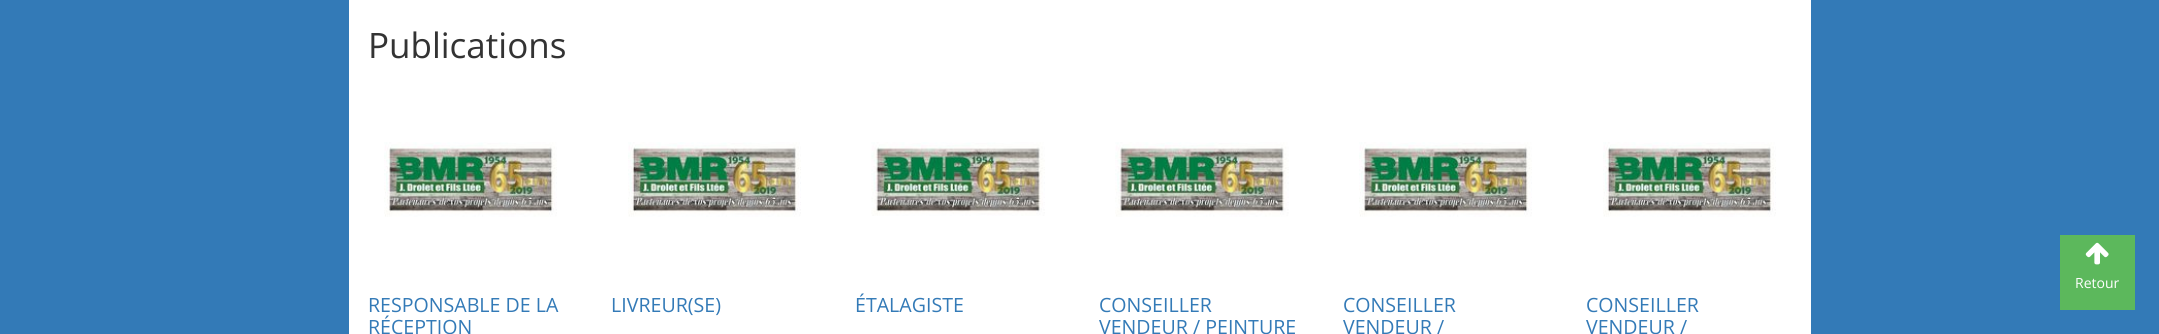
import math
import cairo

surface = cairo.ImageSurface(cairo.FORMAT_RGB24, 2159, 334)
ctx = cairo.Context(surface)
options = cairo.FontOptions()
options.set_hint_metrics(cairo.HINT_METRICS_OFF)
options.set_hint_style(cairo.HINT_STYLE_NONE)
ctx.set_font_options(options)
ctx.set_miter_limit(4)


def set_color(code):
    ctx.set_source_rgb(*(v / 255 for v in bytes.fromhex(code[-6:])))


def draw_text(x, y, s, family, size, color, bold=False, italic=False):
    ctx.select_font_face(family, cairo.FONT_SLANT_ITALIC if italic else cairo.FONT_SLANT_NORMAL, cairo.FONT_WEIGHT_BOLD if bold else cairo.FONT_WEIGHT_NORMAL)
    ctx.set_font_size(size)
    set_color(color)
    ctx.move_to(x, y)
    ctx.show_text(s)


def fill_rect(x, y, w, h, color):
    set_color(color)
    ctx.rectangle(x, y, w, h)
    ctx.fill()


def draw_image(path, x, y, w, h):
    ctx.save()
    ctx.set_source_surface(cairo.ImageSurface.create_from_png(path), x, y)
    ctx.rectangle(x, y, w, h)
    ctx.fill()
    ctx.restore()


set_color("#337ab7")
ctx.paint()
fill_rect(349, 0, 1462, 334, "#ffffff")
draw_text(368, 58, "Publications", "Open Sans", 35, "#333333")
draw_image("assets/img1.png", 384, 142, 173, 75)
draw_text(368, 312, "RESPONSABLE DE LA", "Open Sans", 19.6, "#337ab7")
draw_text(368, 334, "RÉCEPTION", "Open Sans", 19.6, "#337ab7")
draw_image("assets/img2.png", 628, 142, 173, 75)
draw_text(611, 312, "LIVREUR(SE)", "Open Sans", 19.6, "#337ab7")
draw_image("assets/img3.png", 871, 142, 174, 74)
draw_text(855, 312, "ÉTALAGISTE", "Open Sans", 19.6, "#337ab7")
draw_image("assets/img4.png", 1115, 142, 174, 75)
draw_text(1099, 312, "CONSEILLER", "Open Sans", 19.6, "#337ab7")
draw_text(1099, 334, "VENDEUR / PEINTURE", "Open Sans", 19.6, "#337ab7")
draw_image("assets/img1.png", 1359, 142, 173, 75)
draw_text(1343, 312, "CONSEILLER", "Open Sans", 19.6, "#337ab7")
draw_text(1343, 334, "VENDEUR /", "Open Sans", 19.6, "#337ab7")
draw_image("assets/img5.png", 1603, 142, 173, 75)
draw_text(1586, 312, "CONSEILLER", "Open Sans", 19.6, "#337ab7")
draw_text(1586, 334, "VENDEUR /", "Open Sans", 19.6, "#337ab7")
fill_rect(2060, 235, 75, 75, "#5cb85c")
draw_image("assets/img6.png", 2085, 242, 24, 23)
draw_text(2075, 288, "Retour", "Open Sans", 14, "#ffffff")
surface.write_to_png("output.png")
